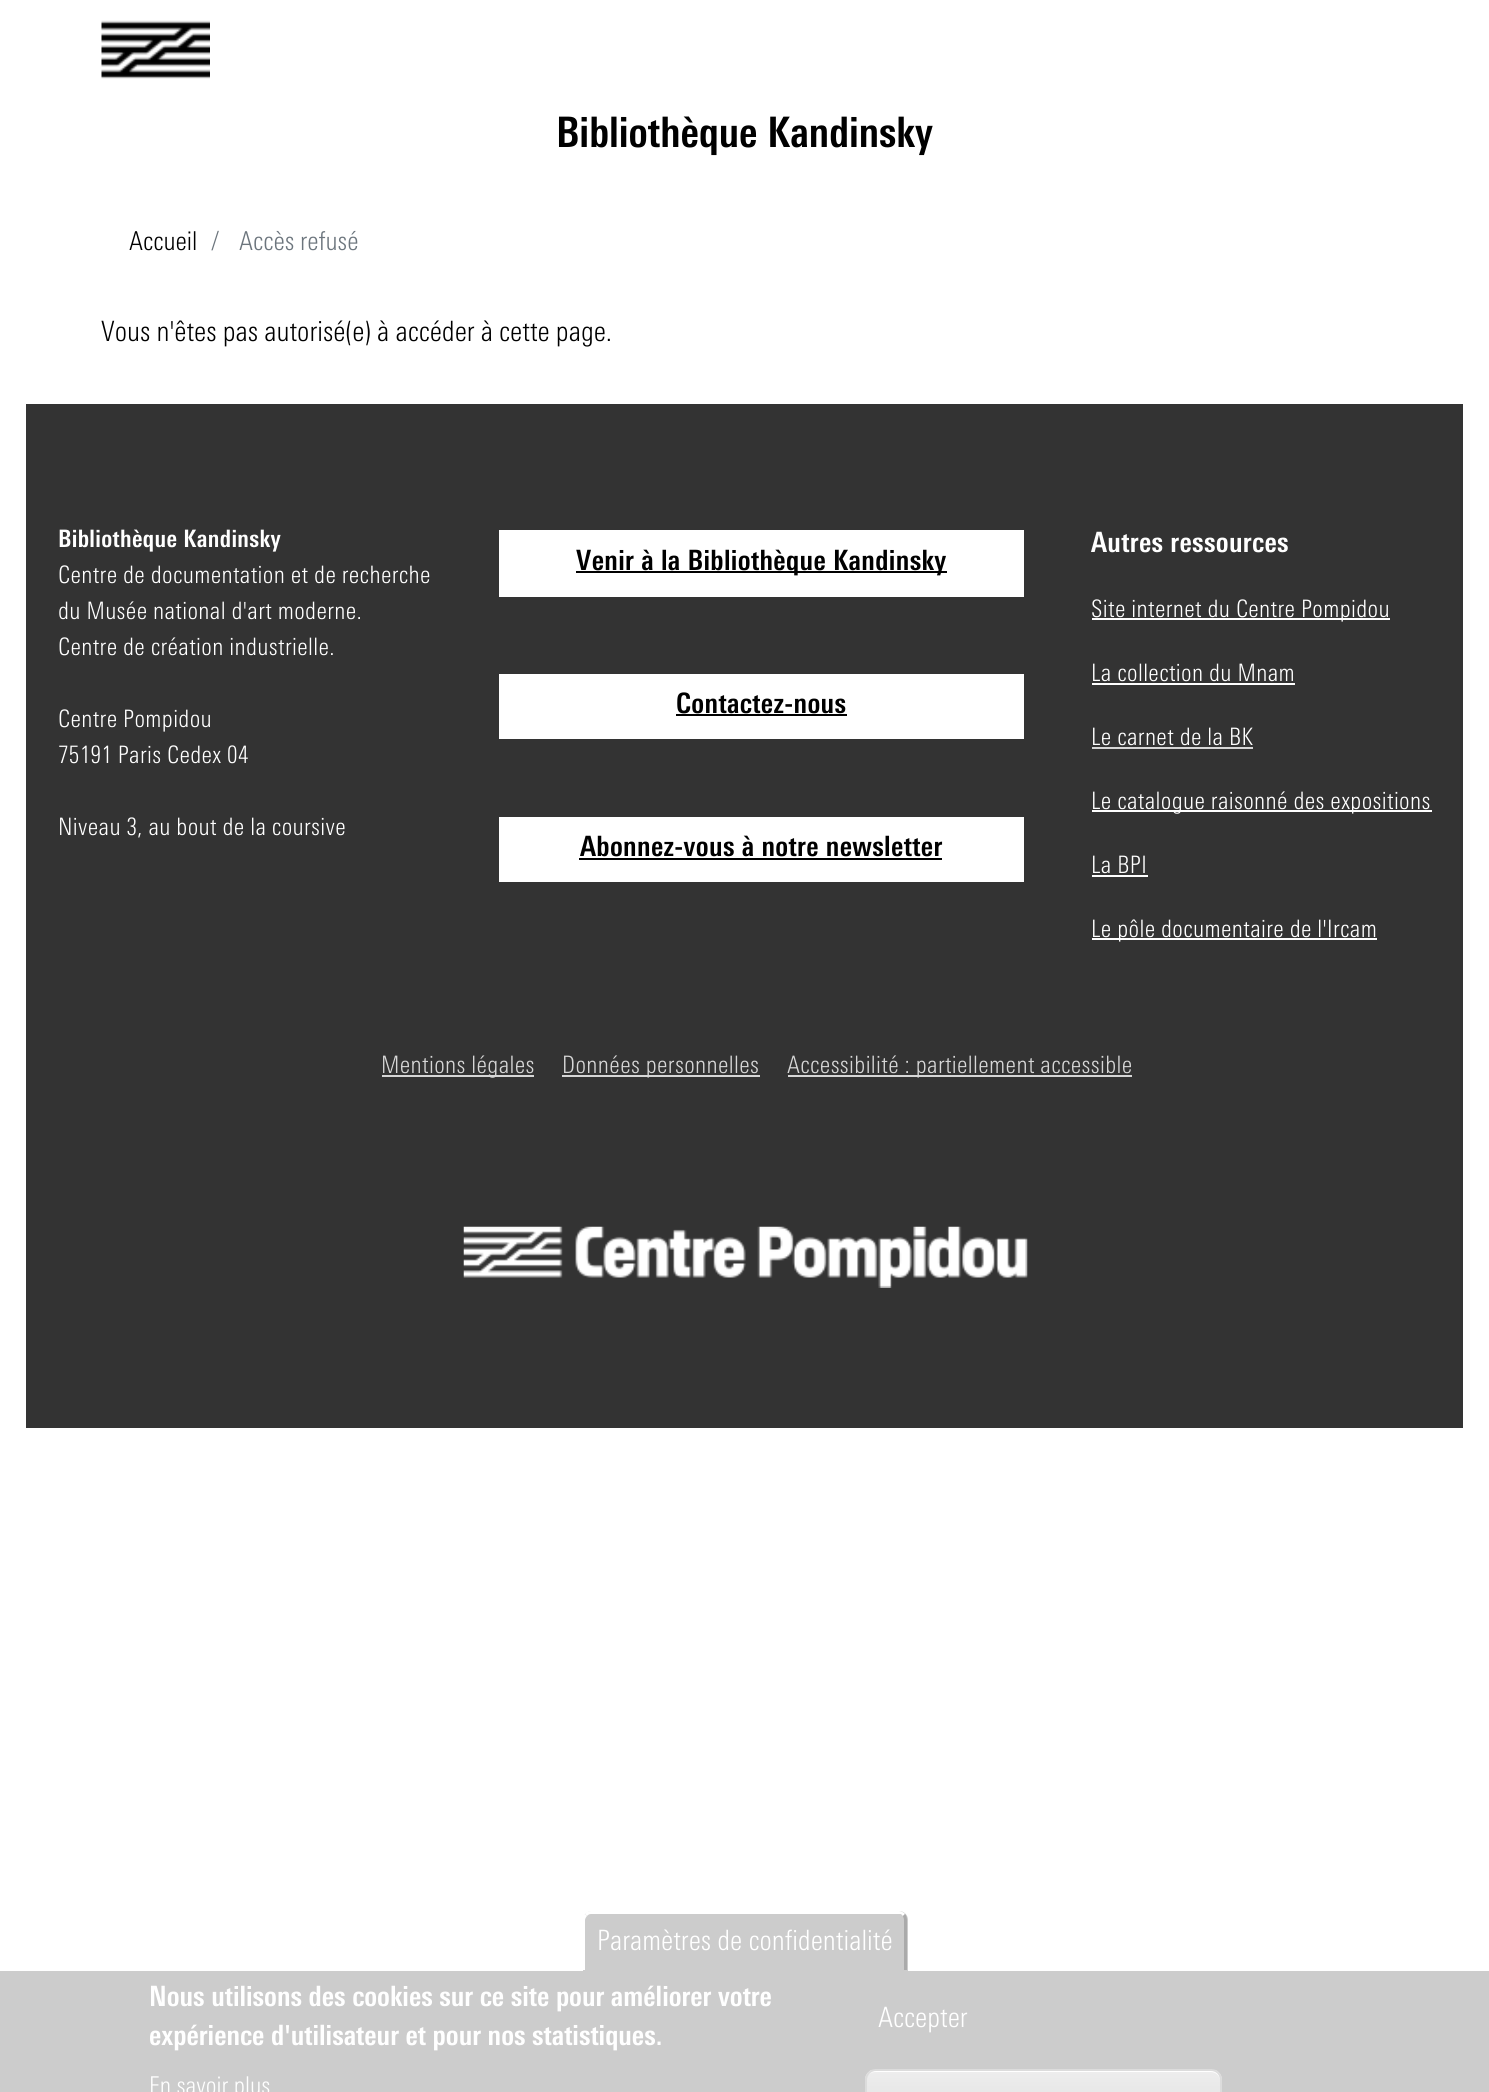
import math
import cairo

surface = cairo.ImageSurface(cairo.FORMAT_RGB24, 1489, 2092)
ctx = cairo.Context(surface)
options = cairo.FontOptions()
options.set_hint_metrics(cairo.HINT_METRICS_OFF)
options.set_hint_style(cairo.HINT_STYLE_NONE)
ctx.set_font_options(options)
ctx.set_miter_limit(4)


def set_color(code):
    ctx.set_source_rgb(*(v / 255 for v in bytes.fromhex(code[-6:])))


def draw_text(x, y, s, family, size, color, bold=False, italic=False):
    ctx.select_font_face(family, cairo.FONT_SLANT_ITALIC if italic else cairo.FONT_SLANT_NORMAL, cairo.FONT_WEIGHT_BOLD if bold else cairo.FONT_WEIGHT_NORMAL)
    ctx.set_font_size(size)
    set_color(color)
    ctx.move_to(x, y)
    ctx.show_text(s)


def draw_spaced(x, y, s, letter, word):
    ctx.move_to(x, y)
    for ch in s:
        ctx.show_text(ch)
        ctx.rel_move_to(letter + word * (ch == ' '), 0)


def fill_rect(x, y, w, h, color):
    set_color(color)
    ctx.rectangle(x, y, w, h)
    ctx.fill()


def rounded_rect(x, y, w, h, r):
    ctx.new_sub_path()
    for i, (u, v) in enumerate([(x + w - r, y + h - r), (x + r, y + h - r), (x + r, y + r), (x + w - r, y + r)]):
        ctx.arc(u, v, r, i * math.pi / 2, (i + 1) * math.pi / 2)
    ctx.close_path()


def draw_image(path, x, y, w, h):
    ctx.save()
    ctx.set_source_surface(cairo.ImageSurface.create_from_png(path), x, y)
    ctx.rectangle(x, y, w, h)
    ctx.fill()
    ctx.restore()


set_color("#ffffff")
ctx.paint()
draw_image("assets/img1.png", 101, 20, 109, 59)
draw_text(556, 147, "Bibliothèque Kandinsky", "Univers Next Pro", 42, "#000000", bold=True)
draw_text(129, 250, "Accueil", "Univers Next Pro Light", 26, "#000000")
draw_text(211, 250, "/", "Univers Next Pro Light", 26, "#6c757d")
draw_text(239, 250, "Accès refusé", "Univers Next Pro Light", 26, "#6c757d")
draw_text(101, 341, "Vous n'êtes pas autorisé(e) à accéder à cette page.", "Univers Next Pro Light", 28, "#000000")
fill_rect(26, 404, 1437, 1024, "#333333")
ctx.select_font_face("Univers Next Pro", cairo.FONT_SLANT_NORMAL, cairo.FONT_WEIGHT_BOLD)
ctx.set_font_size(24)
set_color("#ffffff")
draw_spaced(58, 547, "Bibliothèque Kandinsky", 0.35, 0)
ctx.select_font_face("Univers Next Pro Light")
draw_spaced(58, 583, "Centre de documentation et de recherche", 0.35, 0)
draw_spaced(58, 619, "du Musée national d'art moderne.", 0.35, 0)
draw_spaced(58, 655, "Centre de création industrielle.", 0.35, 0)
draw_spaced(58, 727, "Centre Pompidou", 0.35, 0)
draw_spaced(58, 763, "75191 Paris Cedex 04", 0.35, 0)
draw_spaced(58, 835, "Niveau 3, au bout de la coursive", 0.35, 0)
fill_rect(499, 530, 525, 67, "#ffffff")
fill_rect(576, 571, 371, 2, "#000000")
ctx.select_font_face("Univers Next Pro", cairo.FONT_SLANT_NORMAL, cairo.FONT_WEIGHT_BOLD)
ctx.set_font_size(28)
draw_spaced(576, 570, "Venir à la Bibliothèque Kandinsky", 0.35, 0)
fill_rect(499, 674, 525, 65, "#ffffff")
set_color("#000000")
draw_spaced(676, 713, "Contactez-nous", 0.35, 0)
fill_rect(676, 714, 171, 2, "#000000")
fill_rect(499, 817, 525, 65, "#ffffff")
set_color("#000000")
draw_spaced(580, 856, "Abonnez-vous à notre newsletter", 0.35, 0)
fill_rect(579, 858, 363, 2, "#000000")
set_color("#ffffff")
draw_spaced(1091, 552, "Autres ressources", 0.35, 0)
fill_rect(1092, 618, 298, 2, "#ffffff")
ctx.select_font_face("Univers Next Pro Light")
ctx.set_font_size(24)
draw_spaced(1091, 617, "Site internet du Centre Pompidou", 0.35, 0)
draw_spaced(1091, 681, "La collection du Mnam", 0.35, 0)
fill_rect(1092, 683, 203, 2, "#ffffff")
draw_spaced(1091, 745, "Le carnet de la BK", 0.35, 0)
fill_rect(1092, 747, 161, 2, "#d6d6d6")
fill_rect(1092, 810, 340, 2, "#ffffff")
draw_spaced(1091, 809, "Le catalogue raisonné des expositions", 0.35, 0)
draw_spaced(1091, 873, "La BPI", 0.35, 0)
fill_rect(1092, 875, 56, 2, "#ffffff")
fill_rect(1092, 938, 285, 2, "#ffffff")
draw_spaced(1091, 937, "Le pôle documentaire de l'Ircam", 0.35, 0)
fill_rect(382, 1075, 152, 2, "#d6d6d6")
set_color("#d7d7d7")
draw_spaced(381, 1073, "Mentions légales", 0.35, 0)
fill_rect(562, 1075, 198, 2, "#d6d6d6")
set_color("#d7d7d7")
draw_spaced(562, 1073, "Données personnelles", 0.35, 0)
fill_rect(788, 1075, 344, 2, "#d6d6d6")
set_color("#d7d7d7")
draw_spaced(787, 1073, "Accessibilité : partiellement accessible", 0.35, 0)
draw_image("assets/img2.png", 463, 1226, 565, 62)
fill_rect(0, 1971, 1489, 121, "#cccccc")
ctx.new_path()
ctx.move_to(592, 1911)
ctx.line_to(899, 1911)
ctx.curve_to(904, 1911, 908, 1915, 908, 1920)
ctx.line_to(908, 1971)
ctx.line_to(583, 1971)
ctx.line_to(583, 1920)
ctx.curve_to(583, 1915, 587, 1911, 592, 1911)
ctx.close_path()
ctx.fill()
set_color("#ffffff")
ctx.new_path()
ctx.move_to(591, 1911)
ctx.line_to(899, 1911)
ctx.curve_to(901, 1911, 903, 1912, 905, 1914)
ctx.line_to(903, 1916)
ctx.line_to(901, 1914)
ctx.line_to(591, 1914)
ctx.curve_to(589, 1914, 588, 1915, 587, 1916)
ctx.line_to(585, 1914)
ctx.curve_to(586, 1912, 588, 1911, 591, 1911)
ctx.close_path()
ctx.fill()
set_color("#aaaaaa")
ctx.new_path()
ctx.move_to(905, 1914)
ctx.line_to(903, 1916)
ctx.curve_to(903, 1917, 904, 1918, 904, 1920)
ctx.line_to(904, 1970)
ctx.line_to(907, 1970)
ctx.line_to(907, 1920)
ctx.curve_to(907, 1917, 906, 1915, 905, 1914)
ctx.close_path()
ctx.fill()
set_color("#ffffff")
ctx.new_path()
ctx.move_to(585, 1914)
ctx.line_to(587, 1916)
ctx.curve_to(586, 1917, 585, 1919, 585, 1920)
ctx.line_to(585, 1970)
ctx.line_to(582, 1970)
ctx.line_to(582, 1920)
ctx.curve_to(582, 1918, 583, 1915, 585, 1914)
ctx.close_path()
ctx.fill()
draw_text(597, 1950, "Paramètres de confidentialité", "Univers Next Pro Light", 28, "#ffffff")
draw_text(149, 2006, "Nous utilisons des cookies sur ce site pour améliorer votre", "Univers Next Pro", 28, "#ffffff", bold=True)
draw_text(149, 2045, "expérience d'utilisateur et pour nos statistiques.", "Univers Next Pro", 28, "#ffffff", bold=True)
draw_text(149, 2094, "En savoir plus", "Univers Next Pro Light", 24.5, "#ffffff")
draw_text(878, 2027, "Accepter", "Univers Next Pro Light", 28, "#ffffff")
ctx.save()
rounded_rect(865, 2069, 357, 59, 11)
ctx.clip()
gradient = cairo.LinearGradient(1043, 2070, 1043, 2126)
gradient.add_color_stop_rgba(0.05, 0.929, 0.929, 0.929, 1)
gradient.add_color_stop_rgba(1, 0.875, 0.875, 0.875, 1)
ctx.set_source(gradient)
ctx.rectangle(865, 2070, 357, 22)
ctx.fill()
ctx.restore()
ctx.new_path()
ctx.move_to(875, 2072)
ctx.line_to(1211, 2072)
ctx.curve_to(1216, 2072, 1220, 2076, 1220, 2081)
ctx.curve_to(1220, 2076, 1218, 2071, 1213, 2070)
ctx.line_to(873, 2070)
ctx.curve_to(868, 2071, 866, 2076, 866, 2081)
ctx.curve_to(866, 2076, 870, 2072, 875, 2072)
ctx.close_path()
ctx.fill()
rounded_rect(866, 2070, 355, 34, 10)
set_color("#dcdcdc")
ctx.stroke()
surface.write_to_png("output.png")
